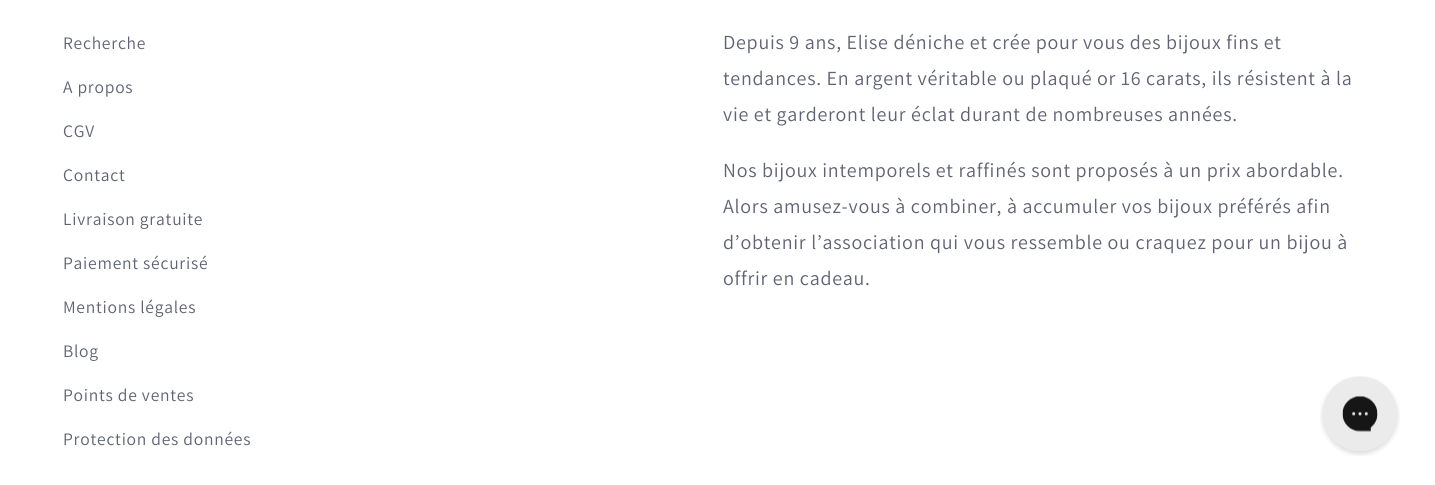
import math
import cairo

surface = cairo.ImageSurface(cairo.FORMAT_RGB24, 1435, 485)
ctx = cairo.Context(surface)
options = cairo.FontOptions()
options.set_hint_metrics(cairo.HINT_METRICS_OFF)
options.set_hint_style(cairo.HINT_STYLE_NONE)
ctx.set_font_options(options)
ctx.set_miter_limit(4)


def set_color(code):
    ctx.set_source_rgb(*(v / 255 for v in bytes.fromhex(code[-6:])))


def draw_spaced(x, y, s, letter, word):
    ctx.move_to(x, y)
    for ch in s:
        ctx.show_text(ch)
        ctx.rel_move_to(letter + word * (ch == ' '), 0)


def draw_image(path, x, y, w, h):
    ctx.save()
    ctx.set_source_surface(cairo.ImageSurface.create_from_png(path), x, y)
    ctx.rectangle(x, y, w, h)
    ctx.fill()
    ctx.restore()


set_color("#ffffff")
ctx.paint()
ctx.select_font_face("Assistant")
ctx.set_font_size(17.5)
set_color("#5f6374")
draw_spaced(63, 49, "Recherche", 0.75, 0)
draw_spaced(63, 93, "A propos", 0.75, 0)
draw_spaced(63, 137, "CGV", 0.75, 0)
draw_spaced(63, 181, "Contact", 0.75, 0)
draw_spaced(63, 225, "Livraison gratuite", 0.75, 0)
draw_spaced(63, 269, "Paiement sécurisé", 0.75, 0)
draw_spaced(63, 313, "Mentions légales", 0.75, 0)
draw_spaced(63, 357, "Blog", 0.75, 0)
draw_spaced(63, 401, "Points de ventes", 0.75, 0)
draw_spaced(63, 445, "Protection des données", 0.75, 0)
ctx.set_font_size(20)
draw_spaced(723, 49, "Depuis 9 ans, Elise déniche et crée pour vous des bijoux fins et", 0.75, 0)
draw_spaced(723, 85, "tendances. En argent véritable ou plaqué or 16 carats, ils résistent à la", 0.75, 0)
draw_spaced(723, 121, "vie et garderont leur éclat durant de nombreuses années.", 0.75, 0)
draw_spaced(723, 177, "Nos bijoux intemporels et raffinés sont proposés à un prix abordable.", 0.75, 0)
draw_spaced(723, 213, "Alors amusez-vous à combiner, à accumuler vos bijoux préférés afin", 0.75, 0)
draw_spaced(723, 249, "d’obtenir l’association qui vous ressemble ou craquez pour un bijou à", 0.75, 0)
draw_spaced(723, 285, "offrir en cadeau.", 0.75, 0)
draw_image("assets/img1.png", 1320, 376, 80, 80)
surface.write_to_png("output.png")
